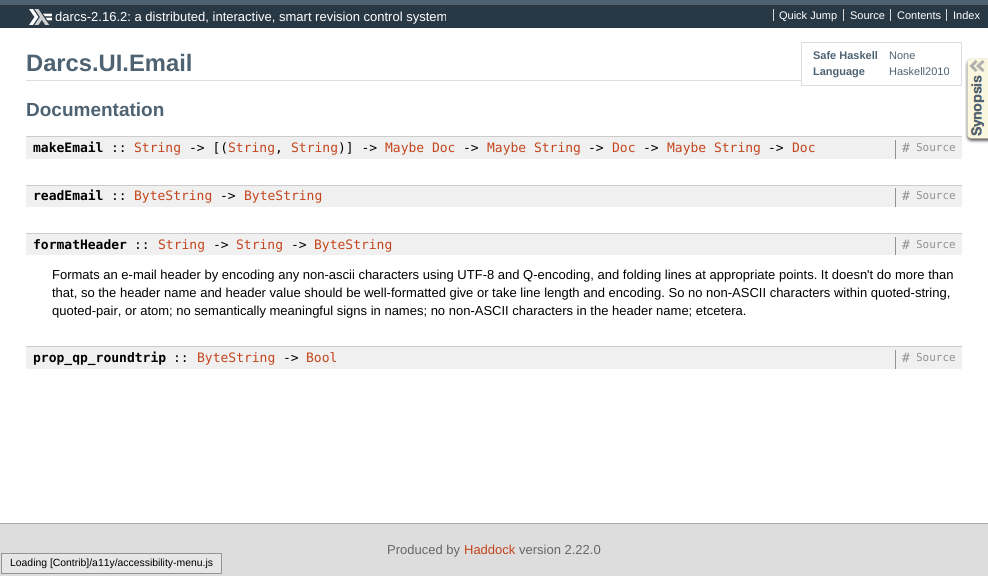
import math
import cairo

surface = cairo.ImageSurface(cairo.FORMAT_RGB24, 988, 576)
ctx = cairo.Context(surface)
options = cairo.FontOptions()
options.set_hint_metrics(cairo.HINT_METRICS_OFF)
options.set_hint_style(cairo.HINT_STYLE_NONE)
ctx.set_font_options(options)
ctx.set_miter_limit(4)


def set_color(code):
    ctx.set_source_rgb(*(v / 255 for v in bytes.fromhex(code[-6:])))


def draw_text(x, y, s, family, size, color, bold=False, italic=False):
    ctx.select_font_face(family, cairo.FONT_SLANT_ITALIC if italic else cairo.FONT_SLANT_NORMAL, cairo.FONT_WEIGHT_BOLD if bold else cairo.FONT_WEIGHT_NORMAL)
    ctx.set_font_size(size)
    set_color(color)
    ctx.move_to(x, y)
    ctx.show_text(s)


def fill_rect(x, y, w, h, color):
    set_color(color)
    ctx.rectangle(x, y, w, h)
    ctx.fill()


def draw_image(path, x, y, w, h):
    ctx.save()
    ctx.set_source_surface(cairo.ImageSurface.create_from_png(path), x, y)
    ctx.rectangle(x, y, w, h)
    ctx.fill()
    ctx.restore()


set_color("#ffffff")
ctx.paint()
fill_rect(0, 5, 988, 23, "#293845")
fill_rect(0, 0, 988, 5, "#4e6272")
draw_image("assets/img1.png", 29, 9, 23, 16)
draw_text(55, 21, "darcs-2.16.2: a distributed, interactive, smart revision control system", "Liberation Sans", 13, "#ffffff")
draw_text(779, 19, "Quick Jump", "Liberation Sans", 11, "#ffffff")
fill_rect(773, 9, 1, 12, "#d5d5d5")
draw_text(850, 19, "Source", "Liberation Sans", 11, "#ffffff")
fill_rect(843, 9, 1, 12, "#d5d5d5")
draw_text(897, 19, "Contents", "Liberation Sans", 11, "#ffffff")
fill_rect(890, 9, 1, 12, "#d5d5d5")
draw_text(953, 19, "Index", "Liberation Sans", 11, "#ffffff")
fill_rect(946, 9, 1, 12, "#d5d5d5")
fill_rect(26, 80, 775, 1, "#dddddd")
draw_text(26, 71, "Darcs.UI.Email", "Liberation Sans", 23.75, "#4e6272", bold=True)
ctx.rectangle(801.5, 42.5, 160, 43)
set_color("#dddddd")
ctx.set_line_width(1)
ctx.stroke()
draw_text(813, 59, "Safe Haskell", "Liberation Sans", 11, "#4e6272", bold=True)
draw_text(889, 59, "None", "Liberation Sans", 11, "#4e6272")
draw_text(813, 75, "Language", "Liberation Sans", 11, "#4e6272", bold=True)
draw_text(889, 75, "Haskell2010", "Liberation Sans", 11, "#4e6272")
draw_image("assets/img2.png", 965, 58, 23, 86)
draw_text(26, 116, "Documentation", "Liberation Sans", 19, "#4e6272", bold=True)
fill_rect(26, 137, 936, 22, "#f0f0f0")
fill_rect(26, 136, 936, 1, "#cccccc")
draw_text(33, 152, "makeEmail", "DejaVu Sans Mono", 13, "#000000", bold=True)
draw_text(111, 152, "::", "DejaVu Sans Mono", 13, "#000000")
draw_text(134, 152, "String", "DejaVu Sans Mono", 13, "#c4451d")
draw_text(189, 152, "-> [(", "DejaVu Sans Mono", 13, "#000000")
draw_text(228, 152, "String", "DejaVu Sans Mono", 13, "#c4451d")
draw_text(275, 152, ",", "DejaVu Sans Mono", 13, "#000000")
draw_text(291, 152, "String", "DejaVu Sans Mono", 13, "#c4451d")
draw_text(338, 152, ")] ->", "DejaVu Sans Mono", 13, "#000000")
draw_text(385, 152, "Maybe Doc", "DejaVu Sans Mono", 13, "#c4451d")
draw_text(463, 152, "->", "DejaVu Sans Mono", 13, "#000000")
draw_text(487, 152, "Maybe String", "DejaVu Sans Mono", 13, "#c4451d")
draw_text(588, 152, "->", "DejaVu Sans Mono", 13, "#000000")
draw_text(612, 152, "Doc", "DejaVu Sans Mono", 13, "#c4451d")
draw_text(643, 152, "->", "DejaVu Sans Mono", 13, "#000000")
draw_text(667, 152, "Maybe String", "DejaVu Sans Mono", 13, "#c4451d")
draw_text(768, 152, "->", "DejaVu Sans Mono", 13, "#000000")
draw_text(792, 152, "Doc", "DejaVu Sans Mono", 13, "#c4451d")
draw_text(916, 151, "Source", "DejaVu Sans Mono", 11, "#919191")
fill_rect(916, 143, 1, 8, "#f0f0f0")
fill_rect(895, 140, 1, 19, "#919191")
draw_text(902, 152, "#", "DejaVu Sans Mono", 13, "#919191")
fill_rect(26, 186, 936, 21, "#f0f0f0")
fill_rect(26, 185, 936, 1, "#cccccc")
draw_text(33, 200, "readEmail", "DejaVu Sans Mono", 13, "#000000", bold=True)
draw_text(111, 200, "::", "DejaVu Sans Mono", 13, "#000000")
draw_text(134, 200, "ByteString", "DejaVu Sans Mono", 13, "#c4451d")
draw_text(220, 200, "->", "DejaVu Sans Mono", 13, "#000000")
draw_text(244, 200, "ByteString", "DejaVu Sans Mono", 13, "#c4451d")
draw_text(916, 199, "Source", "DejaVu Sans Mono", 11, "#919191")
fill_rect(916, 191, 1, 8, "#f0f0f0")
fill_rect(895, 188, 1, 19, "#919191")
draw_text(902, 200, "#", "DejaVu Sans Mono", 13, "#919191")
fill_rect(26, 234, 936, 21, "#f0f0f0")
fill_rect(26, 233, 936, 1, "#cccccc")
draw_text(33, 249, "formatHeader", "DejaVu Sans Mono", 13, "#000000", bold=True)
draw_text(134, 249, "::", "DejaVu Sans Mono", 13, "#000000")
draw_text(158, 249, "String", "DejaVu Sans Mono", 13, "#c4451d")
draw_text(213, 249, "->", "DejaVu Sans Mono", 13, "#000000")
draw_text(236, 249, "String", "DejaVu Sans Mono", 13, "#c4451d")
draw_text(291, 249, "->", "DejaVu Sans Mono", 13, "#000000")
draw_text(314, 249, "ByteString", "DejaVu Sans Mono", 13, "#c4451d")
draw_text(916, 248, "Source", "DejaVu Sans Mono", 11, "#919191")
fill_rect(916, 240, 1, 8, "#f0f0f0")
fill_rect(895, 237, 1, 18, "#919191")
draw_text(902, 249, "#", "DejaVu Sans Mono", 13, "#919191")
draw_text(52, 279, "Formats an e-mail header by encoding any non-ascii characters using UTF-8 and Q-encoding, and folding lines at appropriate points. It doesn't do more than", "Liberation Sans", 13, "#000000")
draw_text(52, 297, "that, so the header name and header value should be well-formatted give or take line length and encoding. So no non-ASCII characters within quoted-string,", "Liberation Sans", 13, "#000000")
draw_text(52, 315, "quoted-pair, or atom; no semantically meaningful signs in names; no non-ASCII characters in the header name; etcetera.", "Liberation Sans", 13, "#000000")
fill_rect(26, 347, 936, 22, "#f0f0f0")
fill_rect(26, 346, 936, 1, "#cccccc")
draw_text(33, 362, "prop_qp_roundtrip", "DejaVu Sans Mono", 13, "#000000", bold=True)
draw_text(173, 362, "::", "DejaVu Sans Mono", 13, "#000000")
draw_text(197, 362, "ByteString", "DejaVu Sans Mono", 13, "#c4451d")
draw_text(283, 362, "->", "DejaVu Sans Mono", 13, "#000000")
draw_text(306, 362, "Bool", "DejaVu Sans Mono", 13, "#c4451d")
draw_text(916, 361, "Source", "DejaVu Sans Mono", 11, "#919191")
fill_rect(916, 353, 1, 8, "#f0f0f0")
fill_rect(895, 350, 1, 19, "#919191")
draw_text(902, 362, "#", "DejaVu Sans Mono", 13, "#919191")
fill_rect(0, 524, 988, 52, "#dddddd")
fill_rect(0, 523, 988, 1, "#aaaaaa")
draw_text(387, 554, "Produced by", "Liberation Sans", 13, "#666666")
draw_text(464, 554, "Haddock", "Liberation Sans", 13, "#c4451d")
draw_text(519, 554, "version 2.22.0", "Liberation Sans", 13, "#666666")
set_color("#e6e6e6")
ctx.rectangle(1.5, 553.5, 220, 20)
ctx.fill_preserve()
set_color("#959595")
ctx.stroke()
draw_text(10, 566, "Loading [Contrib]/a11y/accessibility-menu.js", "Liberation Sans", 10.4, "#000000")
surface.write_to_png("output.png")
